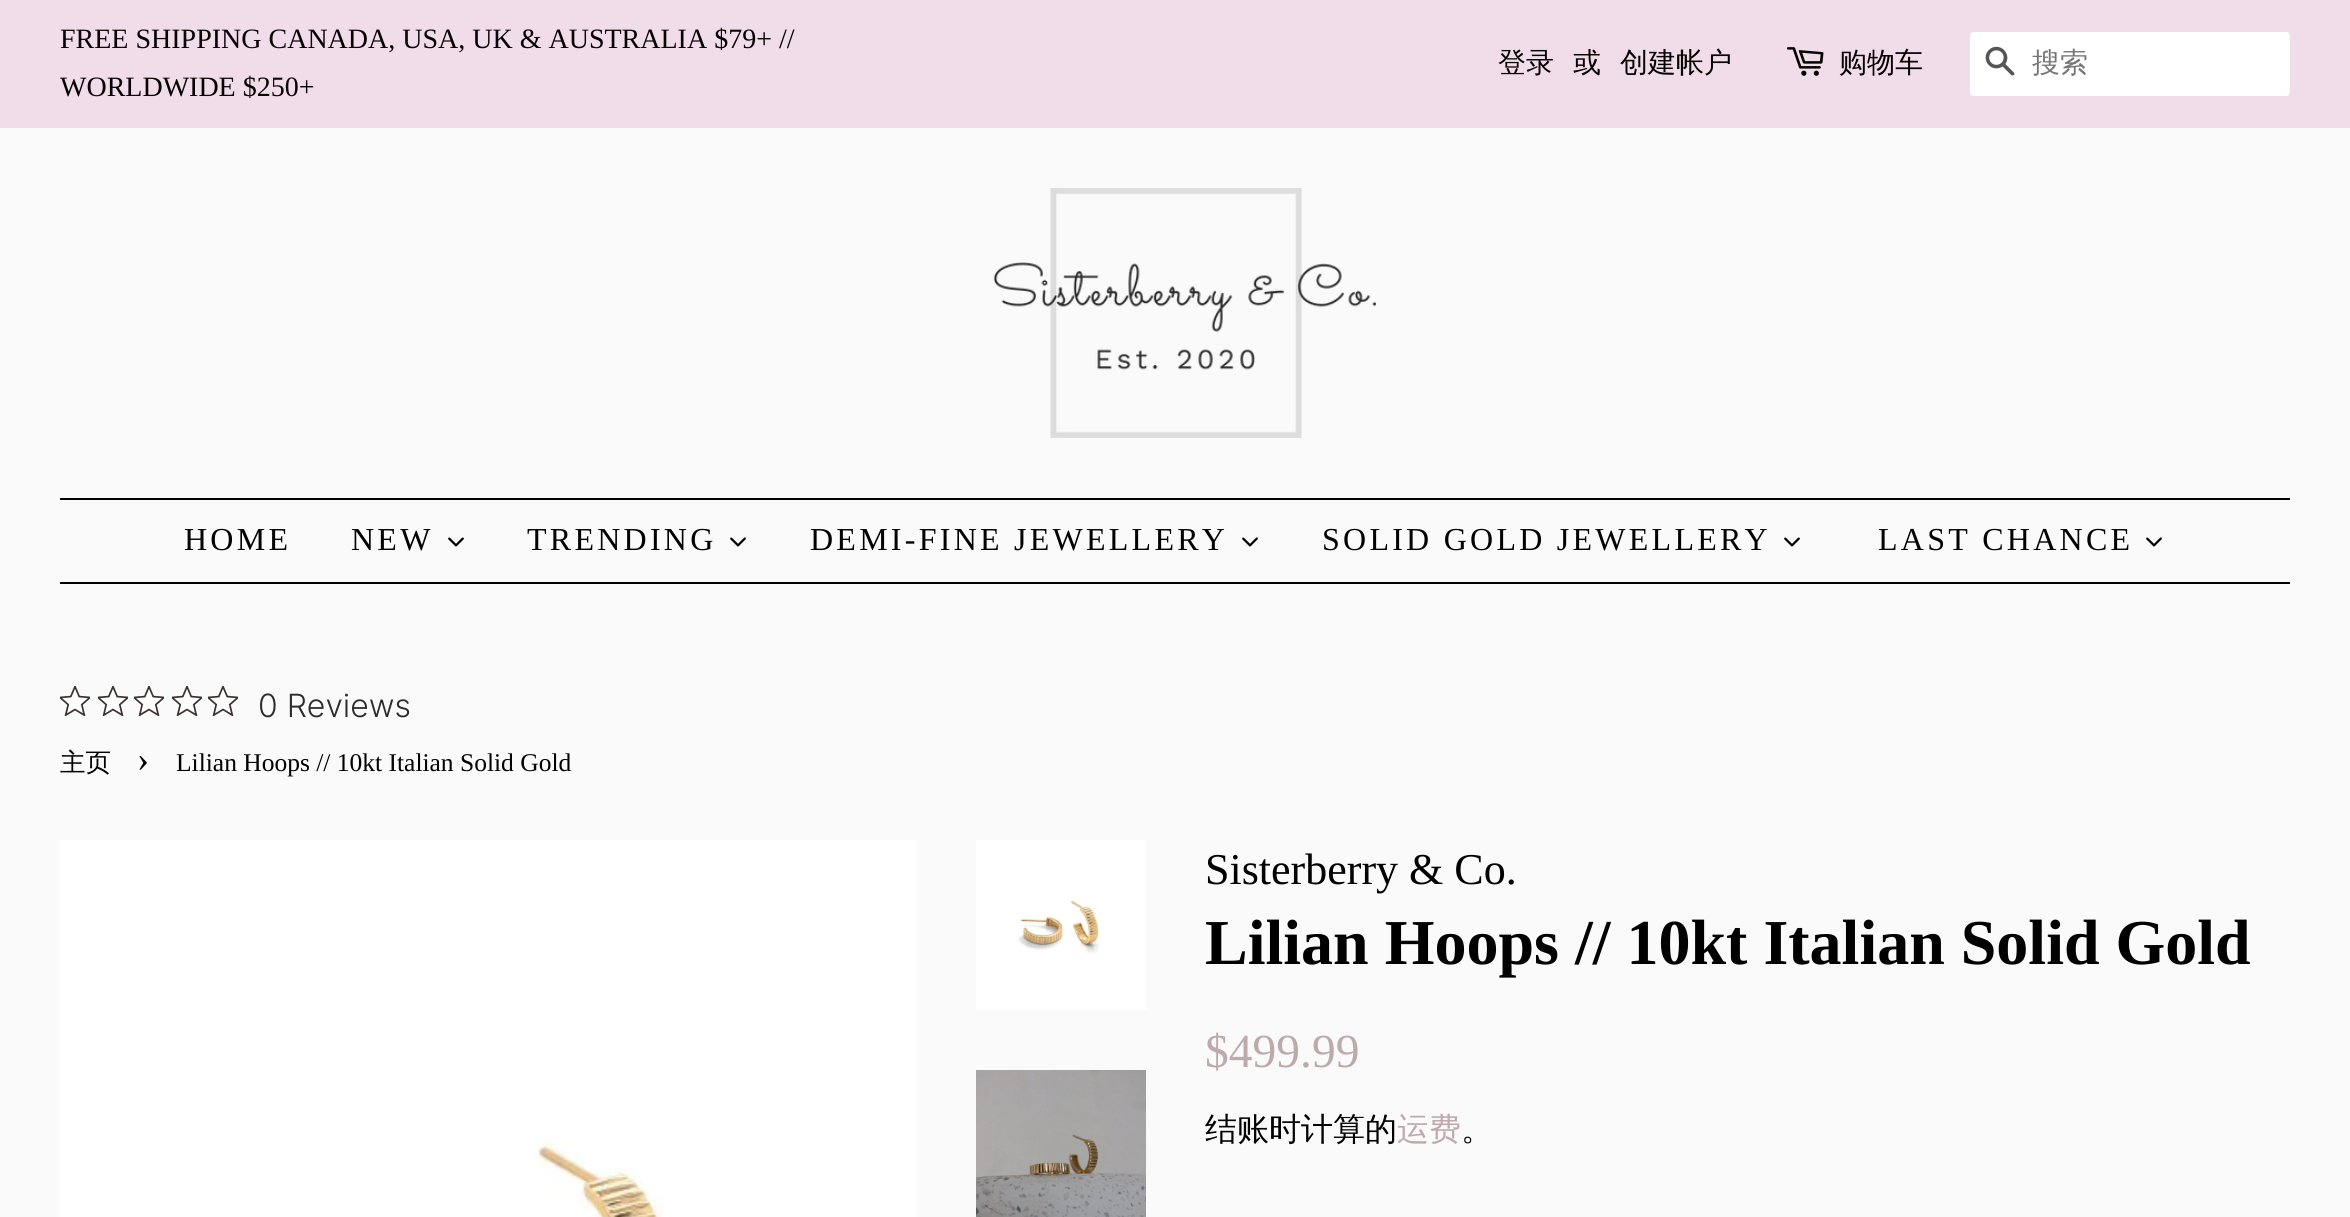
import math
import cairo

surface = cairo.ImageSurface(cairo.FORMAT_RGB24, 2350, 1217)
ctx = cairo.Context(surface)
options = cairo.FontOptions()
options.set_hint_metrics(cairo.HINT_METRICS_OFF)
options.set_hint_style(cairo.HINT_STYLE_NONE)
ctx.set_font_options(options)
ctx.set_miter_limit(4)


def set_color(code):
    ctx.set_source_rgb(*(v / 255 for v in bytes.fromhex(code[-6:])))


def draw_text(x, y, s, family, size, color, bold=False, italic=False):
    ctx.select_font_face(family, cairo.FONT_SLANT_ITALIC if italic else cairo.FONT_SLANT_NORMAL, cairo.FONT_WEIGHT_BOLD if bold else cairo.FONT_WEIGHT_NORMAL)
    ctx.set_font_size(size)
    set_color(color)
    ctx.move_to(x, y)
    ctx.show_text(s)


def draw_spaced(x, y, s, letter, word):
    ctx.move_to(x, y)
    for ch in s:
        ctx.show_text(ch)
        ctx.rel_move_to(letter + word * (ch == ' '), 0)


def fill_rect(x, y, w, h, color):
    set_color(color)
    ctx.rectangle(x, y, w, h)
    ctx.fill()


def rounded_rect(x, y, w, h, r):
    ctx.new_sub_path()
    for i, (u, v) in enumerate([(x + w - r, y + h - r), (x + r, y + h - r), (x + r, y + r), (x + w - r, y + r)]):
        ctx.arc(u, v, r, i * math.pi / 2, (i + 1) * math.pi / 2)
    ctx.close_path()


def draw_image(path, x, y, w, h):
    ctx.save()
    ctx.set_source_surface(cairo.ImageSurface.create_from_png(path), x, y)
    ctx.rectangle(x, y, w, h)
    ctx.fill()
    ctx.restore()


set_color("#fafafa")
ctx.paint()
fill_rect(0, 0, 2350, 128, "#f1dde9")
draw_text(60, 48, "FREE SHIPPING CANADA, USA, UK & AUSTRALIA $79+ //", "Liberation Serif", 28, "#060202")
draw_text(60, 96, "WORLDWIDE $250+", "Liberation Serif", 28, "#060202")
draw_text(1498, 72, "登录", "WenQuanYi Zen Hei Medium", 28, "#060202")
draw_text(1573, 72, "或", "WenQuanYi Zen Hei Medium", 28, "#060202")
draw_text(1620, 72, "创建帐户", "WenQuanYi Zen Hei Medium", 28, "#060202")
draw_image("assets/img1.png", 1786, 47, 38, 29)
draw_text(1839, 72, "购物车", "WenQuanYi Zen Hei Medium", 28, "#060202")
set_color("#ffffff")
rounded_rect(1970, 32, 320, 64, 4)
ctx.fill()
draw_image("assets/img2.png", 1985, 46, 30, 30)
draw_text(2032, 72, "搜索", "WenQuanYi Zen Hei Medium", 28, "#757575")
draw_image("assets/img3.png", 993, 188, 383, 250)
fill_rect(60, 498, 2230, 2, "#000000")
fill_rect(60, 582, 2230, 2, "#000000")
ctx.select_font_face("Liberation Serif")
ctx.set_font_size(32)
draw_spaced(184, 550, "HOME", 3.25, 0)
draw_spaced(351, 550, "NEW", 3.25, 0)
draw_image("assets/img4.png", 448, 537, 16, 10)
draw_spaced(527, 550, "TRENDING", 3.25, 0)
draw_image("assets/img4.png", 730, 537, 16, 10)
draw_spaced(810, 550, "DEMI-FINE JEWELLERY", 3.25, 0)
draw_image("assets/img4.png", 1242, 537, 16, 10)
draw_spaced(1322, 550, "SOLID GOLD JEWELLERY", 3.25, 0)
draw_image("assets/img4.png", 1784, 537, 16, 10)
draw_spaced(1878, 550, "LAST CHANCE", 3.25, 0)
draw_image("assets/img4.png", 2146, 537, 16, 10)
draw_image("assets/img5.png", 60, 686, 30, 30)
draw_image("assets/img5.png", 98, 686, 30, 30)
draw_image("assets/img5.png", 134, 686, 30, 30)
draw_image("assets/img5.png", 172, 686, 30, 30)
draw_image("assets/img5.png", 208, 686, 30, 30)
draw_text(258, 717, "0 Reviews", "Inter Light", 32, "#2c2c2c")
draw_text(60, 771, "主页", "WenQuanYi Zen Hei Medium", 25.5, "#000000")
draw_text(137, 771, "›", "Liberation Serif", 36, "#000000")
draw_text(176, 771, "Lilian Hoops // 10kt Italian Solid Gold", "Liberation Serif", 25.5, "#000000")
draw_image("assets/img6.png", 60, 840, 856, 377)
draw_image("assets/img7.png", 976, 840, 170, 170)
draw_image("assets/img8.png", 976, 1070, 170, 147)
draw_text(1205, 884, "Sisterberry & Co.", "Liberation Serif", 44, "#000000")
draw_text(1205, 964, "Lilian Hoops // 10kt Italian Solid Gold", "Liberation Serif", 64, "#000000", bold=True)
draw_text(1205, 1067, "$499.99", "Liberation Serif", 47.5, "#beaaaa")
draw_text(1205, 1140, "结账时计算的", "WenQuanYi Zen Hei Medium", 32, "#000000")
draw_text(1397, 1140, "运费", "WenQuanYi Zen Hei Medium", 32, "#beaaaa")
draw_text(1461, 1140, "。", "WenQuanYi Zen Hei Medium", 32, "#000000")
surface.write_to_png("output.png")
